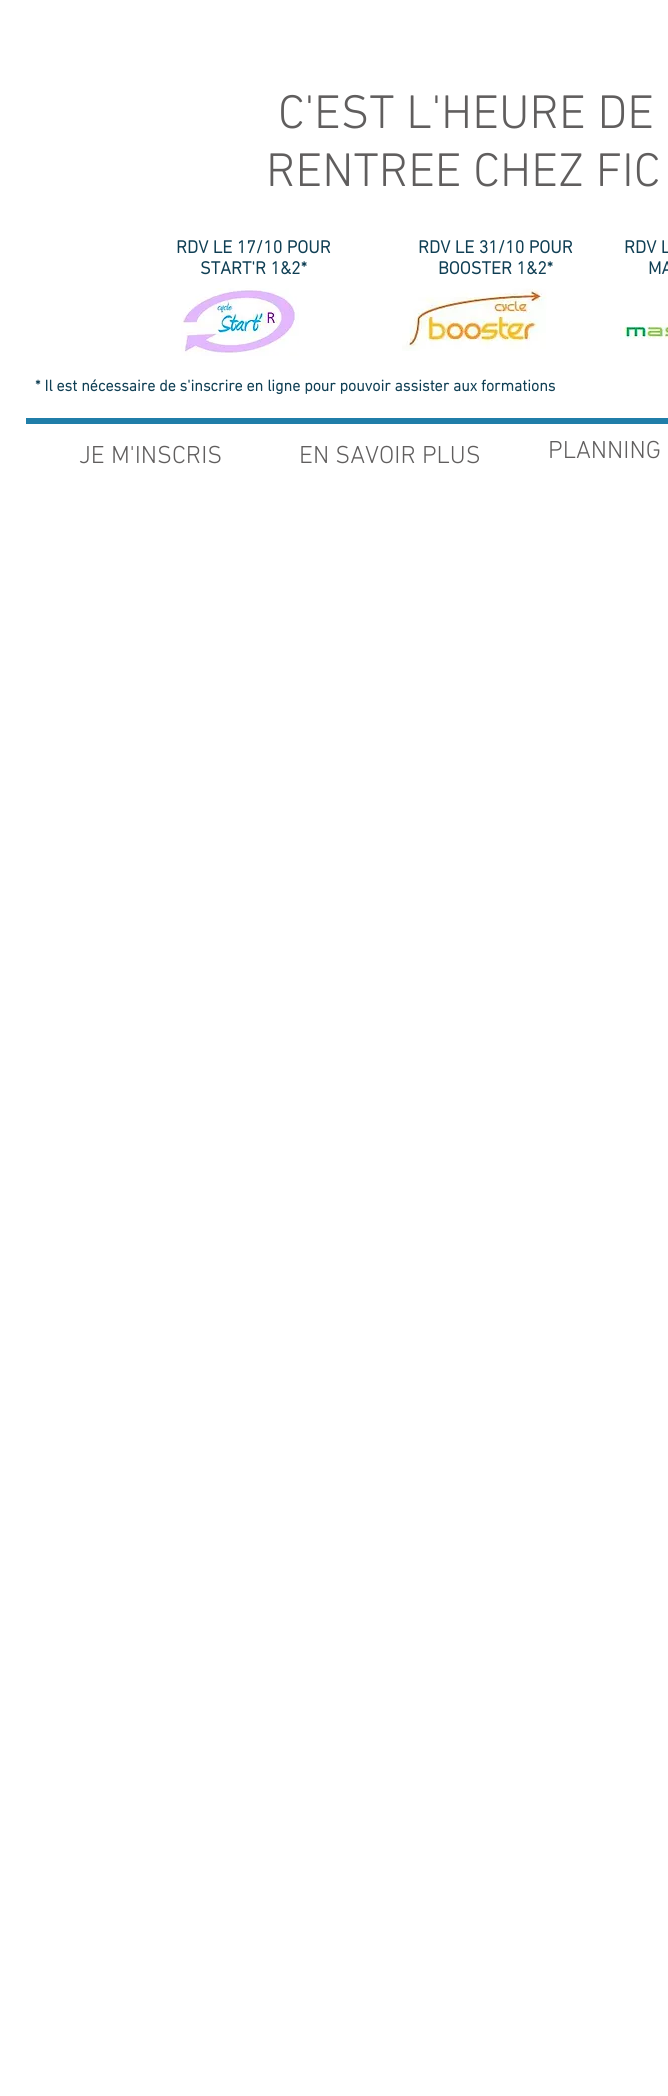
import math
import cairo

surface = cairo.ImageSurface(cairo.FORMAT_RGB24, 668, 2096)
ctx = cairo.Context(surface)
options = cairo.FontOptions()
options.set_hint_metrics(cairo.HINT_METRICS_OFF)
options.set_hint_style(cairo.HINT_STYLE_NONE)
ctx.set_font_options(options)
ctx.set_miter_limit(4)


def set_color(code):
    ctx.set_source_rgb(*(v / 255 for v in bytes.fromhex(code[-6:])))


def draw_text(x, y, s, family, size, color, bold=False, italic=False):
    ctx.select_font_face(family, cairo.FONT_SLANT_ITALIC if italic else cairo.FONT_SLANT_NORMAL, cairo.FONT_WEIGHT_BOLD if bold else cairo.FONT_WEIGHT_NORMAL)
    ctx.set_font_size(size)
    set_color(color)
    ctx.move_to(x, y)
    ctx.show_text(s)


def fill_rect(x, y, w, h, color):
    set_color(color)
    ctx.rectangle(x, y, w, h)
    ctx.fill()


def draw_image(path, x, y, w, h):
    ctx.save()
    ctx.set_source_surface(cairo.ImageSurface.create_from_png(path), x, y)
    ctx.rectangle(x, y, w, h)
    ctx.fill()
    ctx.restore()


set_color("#ffffff")
ctx.paint()
draw_text(278, 128, "C'EST L'HEURE DE", "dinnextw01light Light", 48, "#605e5e")
draw_text(266, 186, "RENTREE CHEZ FIC", "dinnextw01light Light", 48, "#605e5e")
draw_text(176, 253, "RDV LE 17/10 POUR", "dinnextw01light", 18, "#103f54", bold=True)
draw_text(200, 274, "START'R 1&2*", "dinnextw01light", 18, "#103f54", bold=True)
draw_text(418, 253, "RDV LE 31/10 POUR", "dinnextw01light", 18, "#103f54", bold=True)
draw_text(438, 274, "BOOSTER 1&2*", "dinnextw01light", 18, "#103f54", bold=True)
draw_text(624, 253, "RDV L", "dinnextw01light", 18, "#103f54", bold=True)
draw_text(648, 274, "MA", "dinnextw01light", 18, "#103f54", bold=True)
draw_image("assets/img1.png", 181, 288, 118, 68)
draw_image("assets/img2.png", 402, 288, 145, 63)
draw_image("assets/img3.png", 620, 323, 48, 17)
draw_text(35, 391, "* Il est nécessaire de s'inscrire en ligne pour pouvoir assister aux formations", "dinnextw01light", 16, "#103f54", bold=True)
fill_rect(26, 418, 642, 6, "#207ea9")
draw_text(79, 463, "JE M'INSCRIS", "dinnextw01light Light", 25, "#605e5e")
draw_text(299, 463, "EN SAVOIR PLUS", "dinnextw01light Light", 25, "#605e5e")
draw_text(548, 458, "PLANNING", "dinnextw01light Light", 25, "#605e5e")
surface.write_to_png("output.png")
